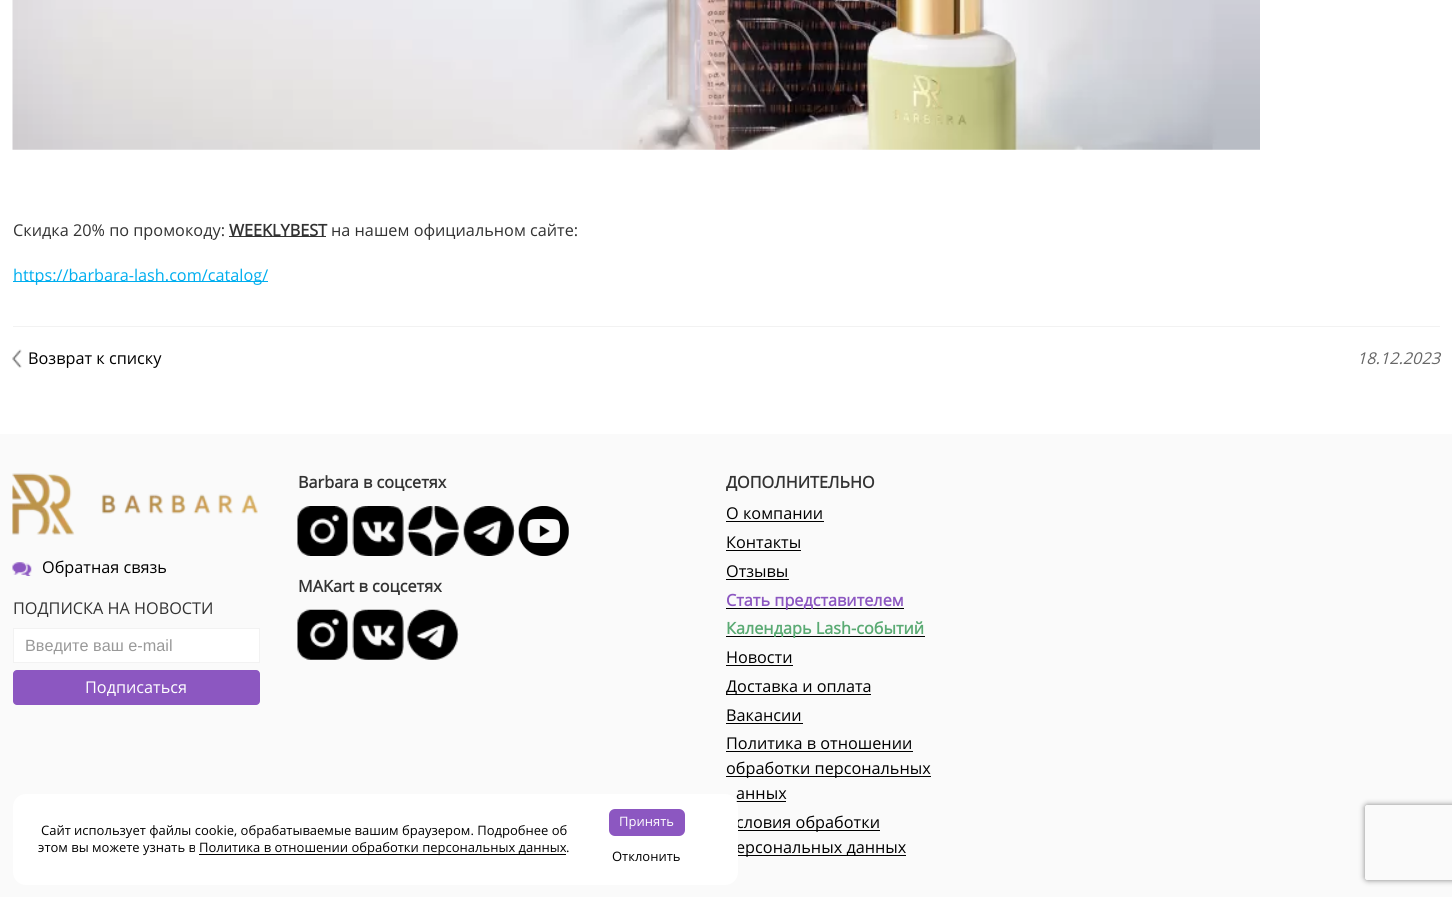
import math
import cairo

surface = cairo.ImageSurface(cairo.FORMAT_RGB24, 1452, 897)
ctx = cairo.Context(surface)
options = cairo.FontOptions()
options.set_hint_metrics(cairo.HINT_METRICS_OFF)
options.set_hint_style(cairo.HINT_STYLE_NONE)
ctx.set_font_options(options)
ctx.set_miter_limit(4)


def set_color(code):
    ctx.set_source_rgb(*(v / 255 for v in bytes.fromhex(code[-6:])))


def draw_text(x, y, s, family, size, color, bold=False, italic=False):
    ctx.select_font_face(family, cairo.FONT_SLANT_ITALIC if italic else cairo.FONT_SLANT_NORMAL, cairo.FONT_WEIGHT_BOLD if bold else cairo.FONT_WEIGHT_NORMAL)
    ctx.set_font_size(size)
    set_color(color)
    ctx.move_to(x, y)
    ctx.show_text(s)


def fill_rect(x, y, w, h, color):
    set_color(color)
    ctx.rectangle(x, y, w, h)
    ctx.fill()


def rounded_rect(x, y, w, h, r):
    ctx.new_sub_path()
    for i, (u, v) in enumerate([(x + w - r, y + h - r), (x + r, y + h - r), (x + r, y + r), (x + w - r, y + r)]):
        ctx.arc(u, v, r, i * math.pi / 2, (i + 1) * math.pi / 2)
    ctx.close_path()


def draw_shadow(x, y, w, h, r, blur, alpha):
    ctx.push_group_with_content(cairo.CONTENT_ALPHA)
    ctx.set_operator(cairo.OPERATOR_SOURCE)
    for i in range(15, -16, -2):
        e = blur * i / 6
        if min(w, h) + 2 * e > 0:
            ctx.set_source_rgba(0, 0, 0, alpha * math.erfc((i - 1) / 8.5) / 2)
            rounded_rect(x - e, y - e, w + 2 * e, h + 2 * e, max(0, min(r + e + blur * .6, min(w, h) / 2 + e)))
            ctx.fill()
    ctx.mask(ctx.pop_group())


def draw_image(path, x, y, w, h):
    ctx.save()
    ctx.set_source_surface(cairo.ImageSurface.create_from_png(path), x, y)
    ctx.rectangle(x, y, w, h)
    ctx.fill()
    ctx.restore()


set_color("#ffffff")
ctx.paint()
draw_image("assets/img1.png", 12, 0, 1248, 150)
draw_text(13, 236, "Скидка 20% по промокоду:", "Open Sans", 16.25, "#333333")
fill_rect(229, 236, 97, 1, "#333333")
draw_text(229, 236, "WEEKLYBEST", "Open Sans", 16.25, "#333333", bold=True)
draw_text(331, 236, "на нашем официальном сайте:", "Open Sans", 16.25, "#333333")
fill_rect(13, 281, 255, 1, "#00aeef")
draw_text(13, 281, "https://barbara-lash.com/catalog/", "Open Sans", 16.25, "#00aeef")
fill_rect(13, 326, 1427, 1, "#f2f2f2")
draw_image("assets/img2.png", 12, 349, 10, 19)
draw_text(28, 364, "Возврат к списку", "Open Sans", 16.25, "#000000")
draw_text(1357, 364, "18.12.2023", "Open Sans", 16.25, "#666666", italic=True)
fill_rect(0, 434, 1452, 463, "#fafafa")
draw_image("assets/img3.png", 12, 473, 246, 62)
draw_image("assets/img4.png", 12, 562, 20, 14)
draw_text(42, 573, "Обратная связь", "Open Sans", 16.25, "#000000")
draw_text(13, 614, "ПОДПИСКА НА НОВОСТИ", "Open Sans", 16.25, "#333333")
set_color("#ffffff")
ctx.rectangle(13.5, 628.5, 246, 34)
ctx.fill_preserve()
set_color("#f2f2f2")
ctx.set_line_width(1)
ctx.stroke()
draw_text(25, 651, "Введите ваш e-mail", "Liberation Sans", 16.25, "#999999")
set_color("#8c57c1")
rounded_rect(13, 670, 247, 35, 4)
ctx.fill()
draw_text(85, 693, "Подписаться", "Open Sans", 16.25, "#ffffff")
draw_text(298, 488, "Barbara в соцсетях", "Open Sans", 16.25, "#333333", bold=True)
draw_image("assets/img5.png", 297, 506, 51, 50)
draw_image("assets/img6.png", 352, 506, 52, 50)
draw_image("assets/img7.png", 407, 506, 52, 50)
draw_image("assets/img8.png", 463, 506, 52, 50)
draw_image("assets/img9.png", 518, 506, 51, 50)
draw_text(298, 592, "MAKart в соцсетях", "Open Sans", 16.25, "#333333", bold=True)
draw_image("assets/img10.png", 297, 609, 51, 51)
draw_image("assets/img11.png", 352, 609, 52, 51)
draw_image("assets/img12.png", 407, 609, 52, 51)
draw_text(726, 488, "ДОПОЛНИТЕЛЬНО", "Open Sans", 16.25, "#333333", bold=True)
draw_text(726, 519, "О компании", "Open Sans", 16.25, "#000000")
fill_rect(726, 521, 98, 1, "#000000")
draw_text(726, 548, "Контакты", "Open Sans", 16.25, "#000000")
fill_rect(726, 550, 75, 1, "#000000")
draw_text(726, 577, "Отзывы", "Open Sans", 16.25, "#000000")
fill_rect(726, 579, 63, 1, "#000000")
fill_rect(726, 608, 178, 1, "#000000")
draw_text(726, 606, "Стать представителем", "Open Sans", 16.25, "#8c57c1", bold=True)
fill_rect(726, 636, 199, 1, "#000000")
draw_text(726, 634, "Календарь Lash-событий", "Open Sans", 16.25, "#5aaa73", bold=True)
draw_text(726, 663, "Новости", "Open Sans", 16.25, "#000000")
fill_rect(726, 665, 67, 1, "#000000")
fill_rect(726, 694, 145, 1, "#000000")
draw_text(726, 692, "Доставка и оплата", "Open Sans", 16.25, "#000000")
draw_text(726, 721, "Вакансии", "Open Sans", 16.25, "#000000")
fill_rect(726, 723, 77, 1, "#000000")
draw_text(726, 749, "Политика в отношении", "Open Sans", 16.25, "#000000")
fill_rect(726, 751, 187, 1, "#000000")
fill_rect(726, 776, 205, 1, "#000000")
draw_text(726, 774, "обработки персональных", "Open Sans", 16.25, "#000000")
draw_text(736, 799, "анных", "Open Sans", 16.25, "#000000")
fill_rect(736, 801, 50, 1, "#000000")
fill_rect(738, 830, 142, 1, "#000000")
draw_text(736, 828, "словия обработки", "Open Sans", 16.25, "#000000")
fill_rect(738, 855, 168, 1, "#000000")
draw_text(736, 853, "ерсональных данных", "Open Sans", 16.25, "#000000")
ctx.save()
ctx.set_fill_rule(cairo.FILL_RULE_EVEN_ODD)
ctx.new_path()
ctx.move_to(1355, 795)
ctx.line_to(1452, 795)
ctx.line_to(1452, 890)
ctx.line_to(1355, 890)
ctx.close_path()
ctx.move_to(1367.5, 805)
ctx.line_to(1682.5, 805)
ctx.curve_to(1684, 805, 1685, 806, 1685, 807.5)
ctx.line_to(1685, 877.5)
ctx.curve_to(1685, 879, 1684, 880, 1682.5, 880)
ctx.line_to(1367.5, 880)
ctx.curve_to(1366, 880, 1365, 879, 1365, 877.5)
ctx.line_to(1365, 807.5)
ctx.curve_to(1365, 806, 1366, 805, 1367.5, 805)
ctx.close_path()
ctx.clip()
set_color("#808080")
draw_shadow(1365, 805, 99, 75, 2.5, 3, 1)
ctx.restore()
set_color("#ffffff")
rounded_rect(13, 794, 725, 91, 13)
ctx.fill()
draw_text(41, 835, "Сайт использует файлы cookie, обрабатываемые вашим браузером. Подробнее об", "Open Sans", 13, "#000000")
draw_text(38, 852, "этом вы можете узнать в", "Open Sans", 13, "#000000")
fill_rect(199, 854, 367, 1, "#000000")
draw_text(199, 852, "Политика в отношении обработки персональных данных", "Open Sans", 13, "#000000")
draw_text(566, 852, ".", "Open Sans", 13, "#000000")
set_color("#8c57c1")
rounded_rect(609, 809, 76, 27, 6)
ctx.fill()
draw_text(619, 826, "Принять", "Open Sans", 13, "#ffffff")
draw_text(612, 861, "Отклонить", "Open Sans", 13, "#000000")
surface.write_to_png("output.png")
